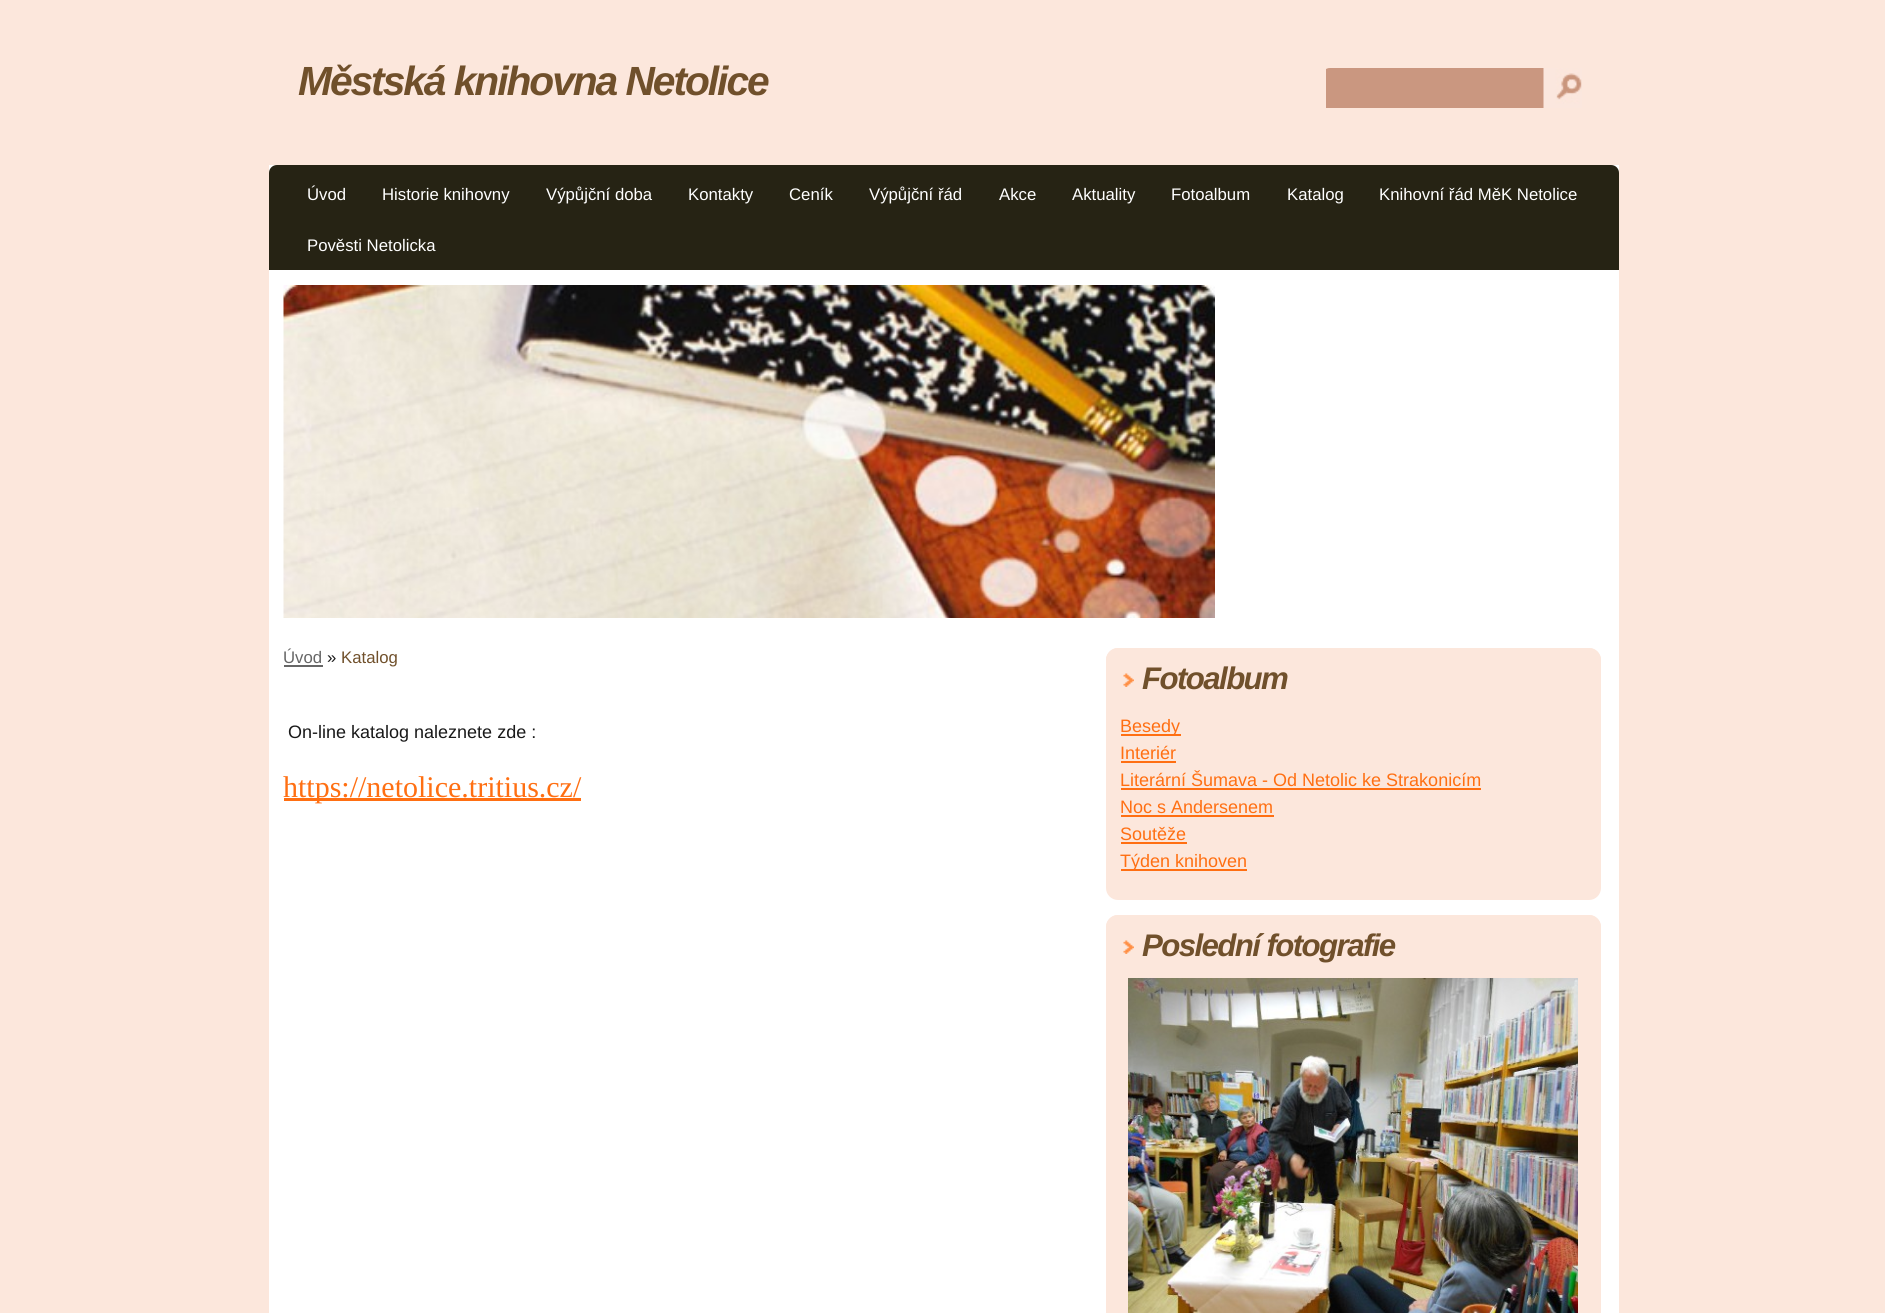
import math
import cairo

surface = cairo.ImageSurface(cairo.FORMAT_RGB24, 1885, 1313)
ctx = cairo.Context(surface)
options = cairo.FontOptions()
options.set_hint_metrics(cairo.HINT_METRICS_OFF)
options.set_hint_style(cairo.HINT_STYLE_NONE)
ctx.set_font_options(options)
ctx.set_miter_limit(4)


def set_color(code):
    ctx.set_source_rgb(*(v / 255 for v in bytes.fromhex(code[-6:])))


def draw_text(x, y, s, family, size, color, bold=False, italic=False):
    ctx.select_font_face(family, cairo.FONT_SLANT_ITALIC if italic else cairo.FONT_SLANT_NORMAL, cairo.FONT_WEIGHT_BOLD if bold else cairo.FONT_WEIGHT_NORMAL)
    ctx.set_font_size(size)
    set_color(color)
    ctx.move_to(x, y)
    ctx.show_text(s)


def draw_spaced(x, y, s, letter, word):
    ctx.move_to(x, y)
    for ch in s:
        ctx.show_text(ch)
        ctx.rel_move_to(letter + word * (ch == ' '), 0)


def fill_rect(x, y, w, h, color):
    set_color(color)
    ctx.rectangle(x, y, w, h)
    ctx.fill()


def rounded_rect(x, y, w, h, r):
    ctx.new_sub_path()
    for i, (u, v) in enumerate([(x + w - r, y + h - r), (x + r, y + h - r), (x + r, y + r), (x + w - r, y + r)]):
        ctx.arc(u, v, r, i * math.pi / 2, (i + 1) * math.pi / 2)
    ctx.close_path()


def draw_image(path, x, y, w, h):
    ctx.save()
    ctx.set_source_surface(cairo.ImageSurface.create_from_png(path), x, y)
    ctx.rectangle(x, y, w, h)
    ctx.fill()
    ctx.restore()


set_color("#fce7dc")
ctx.paint()
fill_rect(269, 165, 1350, 1148, "#ffffff")
draw_image("assets/img1.png", 283, 285, 932, 333)
ctx.select_font_face("Liberation Sans", cairo.FONT_SLANT_ITALIC, cairo.FONT_WEIGHT_BOLD)
ctx.set_font_size(40.75)
set_color("#70502b")
draw_spaced(298, 95, "Městská knihovna Netolice", -2.05, 0)
set_color("#262314")
ctx.new_path()
ctx.move_to(277, 165)
ctx.line_to(1611, 165)
ctx.curve_to(1615.5, 165, 1619, 168.5, 1619, 173)
ctx.line_to(1619, 270)
ctx.line_to(269, 270)
ctx.line_to(269, 173)
ctx.curve_to(269, 168.5, 272.5, 165, 277, 165)
ctx.close_path()
ctx.fill()
draw_text(307, 200, "Úvod", "Liberation Sans", 16.75, "#ffffff")
draw_text(382, 200, "Historie knihovny", "Liberation Sans", 16.75, "#ffffff")
draw_text(546, 200, "Výpůjční doba", "Liberation Sans", 16.75, "#ffffff")
draw_text(688, 200, "Kontakty", "Liberation Sans", 16.75, "#ffffff")
draw_text(789, 200, "Ceník", "Liberation Sans", 16.75, "#ffffff")
draw_text(869, 200, "Výpůjční řád", "Liberation Sans", 16.75, "#ffffff")
draw_text(999, 200, "Akce", "Liberation Sans", 16.75, "#ffffff")
draw_text(1072, 200, "Aktuality", "Liberation Sans", 16.75, "#ffffff")
draw_text(1171, 200, "Fotoalbum", "Liberation Sans", 16.75, "#ffffff")
draw_text(1287, 200, "Katalog", "Liberation Sans", 16.75, "#ffffff")
draw_text(1379, 200, "Knihovní řád MěK Netolice", "Liberation Sans", 16.75, "#ffffff")
draw_text(307, 251, "Pověsti Netolicka", "Liberation Sans", 16.75, "#ffffff")
draw_text(283, 663, "Úvod", "Liberation Sans", 16.75, "#666666")
fill_rect(284, 665, 39, 2, "#666666")
draw_text(327, 663, "»", "Liberation Sans", 16.75, "#191919")
draw_text(341, 663, "Katalog", "Liberation Sans", 16.75, "#70502b")
draw_text(288, 738, "On-line katalog naleznete zde :", "Liberation Sans", 18, "#191919")
fill_rect(284, 798, 297, 3, "#ff6f12")
draw_text(283, 797, "https://netolice.tritius.cz/", "Liberation Serif", 30, "#ff6f12")
ctx.save()
rounded_rect(1319, 68, 300, 51, 12)
ctx.clip()
fill_rect(1326, 68, 216, 38, "#ca9780")
ctx.restore()
set_color("#ca9780")
ctx.set_fill_rule(cairo.FILL_RULE_EVEN_ODD)
ctx.new_path()
ctx.move_to(1331, 68)
ctx.line_to(1326, 69)
ctx.line_to(1326, 108)
ctx.line_to(1544, 108)
ctx.line_to(1544, 68)
ctx.close_path()
ctx.move_to(1328, 70)
ctx.line_to(1328, 106)
ctx.line_to(1542, 106)
ctx.line_to(1542, 70)
ctx.close_path()
ctx.fill()
draw_image("assets/img2.png", 1543, 68, 39, 40)
set_color("#fce7dc")
rounded_rect(1106, 648, 495, 252, 12)
ctx.fill()
ctx.new_path()
ctx.move_to(1118, 648)
ctx.line_to(1589, 648)
ctx.curve_to(1595.5, 648, 1601, 653.5, 1601, 660)
ctx.line_to(1601, 696)
ctx.line_to(1106, 696)
ctx.line_to(1106, 660)
ctx.curve_to(1106, 653.5, 1111.5, 648, 1118, 648)
ctx.close_path()
ctx.fill()
draw_image("assets/img3.png", 1123, 673, 11, 14)
ctx.select_font_face("Liberation Sans", cairo.FONT_SLANT_ITALIC, cairo.FONT_WEIGHT_BOLD)
ctx.set_font_size(31.25)
set_color("#70502b")
draw_spaced(1142, 689, "Fotoalbum", -1.6, 0)
fill_rect(1121, 734, 60, 2, "#ff6f12")
draw_text(1120, 732, "Besedy", "Liberation Sans", 18, "#ff6f12")
draw_text(1120, 759, "Interiér", "Liberation Sans", 18, "#ff6f12")
fill_rect(1121, 761, 55, 2, "#ff6f12")
draw_text(1120, 786, "Literární Šumava - Od Netolic ke Strakonicím", "Liberation Sans", 18, "#ff6f12")
fill_rect(1121, 788, 360, 2, "#ff6f12")
draw_text(1120, 813, "Noc s Andersenem", "Liberation Sans", 18, "#ff6f12")
fill_rect(1121, 815, 153, 2, "#ff6f12")
draw_text(1120, 840, "Soutěže", "Liberation Sans", 18, "#ff6f12")
fill_rect(1121, 842, 66, 2, "#ff6f12")
fill_rect(1121, 869, 126, 2, "#ff6f12")
draw_text(1120, 867, "Týden knihoven", "Liberation Sans", 18, "#ff6f12")
set_color("#fce7dc")
rounded_rect(1106, 915, 495, 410, 12)
ctx.fill()
ctx.new_path()
ctx.move_to(1118, 915)
ctx.line_to(1589, 915)
ctx.curve_to(1595.5, 915, 1601, 920.5, 1601, 927)
ctx.line_to(1601, 963)
ctx.line_to(1106, 963)
ctx.line_to(1106, 927)
ctx.curve_to(1106, 920.5, 1111.5, 915, 1118, 915)
ctx.close_path()
ctx.fill()
draw_image("assets/img3.png", 1123, 940, 11, 14)
ctx.select_font_face("Liberation Sans", cairo.FONT_SLANT_ITALIC, cairo.FONT_WEIGHT_BOLD)
ctx.set_font_size(31.25)
set_color("#70502b")
draw_spaced(1142, 956, "Poslední fotografie", -1.6, 0)
draw_image("assets/img4.png", 1128, 978, 450, 335)
surface.write_to_png("output.png")
